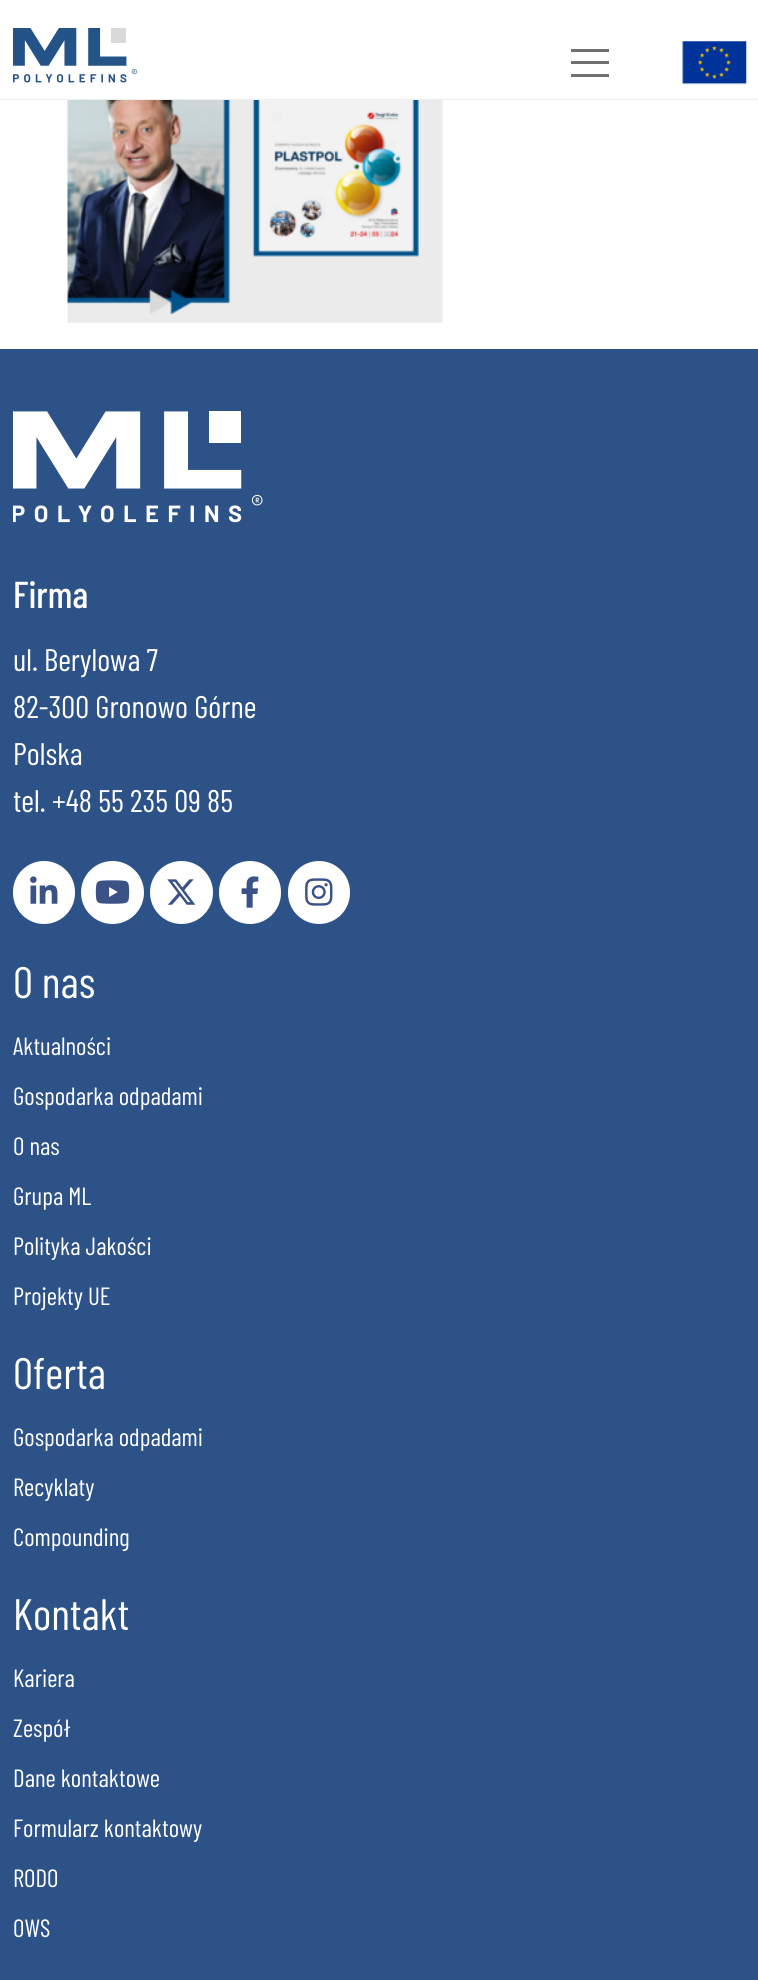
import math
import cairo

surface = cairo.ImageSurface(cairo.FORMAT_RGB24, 758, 1980)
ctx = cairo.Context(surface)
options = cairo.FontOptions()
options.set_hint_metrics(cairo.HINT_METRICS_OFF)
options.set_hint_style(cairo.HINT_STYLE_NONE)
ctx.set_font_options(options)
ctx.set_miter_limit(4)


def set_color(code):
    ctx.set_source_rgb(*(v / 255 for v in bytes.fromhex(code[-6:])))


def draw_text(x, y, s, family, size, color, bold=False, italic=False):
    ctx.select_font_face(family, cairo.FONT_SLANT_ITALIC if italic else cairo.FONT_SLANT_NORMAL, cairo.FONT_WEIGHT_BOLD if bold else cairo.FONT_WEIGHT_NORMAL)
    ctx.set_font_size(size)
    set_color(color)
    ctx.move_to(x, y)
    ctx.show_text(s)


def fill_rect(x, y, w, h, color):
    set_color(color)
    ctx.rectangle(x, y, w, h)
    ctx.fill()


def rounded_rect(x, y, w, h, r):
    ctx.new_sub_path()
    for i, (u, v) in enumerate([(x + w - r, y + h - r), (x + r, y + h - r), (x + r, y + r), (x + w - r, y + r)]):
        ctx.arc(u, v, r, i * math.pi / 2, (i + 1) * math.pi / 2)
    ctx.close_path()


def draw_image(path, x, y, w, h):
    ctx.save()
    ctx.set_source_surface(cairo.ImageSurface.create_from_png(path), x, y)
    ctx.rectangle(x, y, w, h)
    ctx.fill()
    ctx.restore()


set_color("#ffffff")
ctx.paint()
fill_rect(0, 99, 758, 1, "#eeeeee")
draw_image("assets/img1.png", 13, 28, 124, 55)
fill_rect(571, 61, 38, 3, "#707070")
fill_rect(571, 49, 38, 3, "#707070")
fill_rect(571, 74, 38, 3, "#707070")
draw_image("assets/img2.png", 682, 41, 65, 44)
draw_image("assets/img3.png", 67, 100, 376, 223)
fill_rect(0, 349, 758, 1631, "#2c5288")
draw_image("assets/img4.png", 13, 411, 250, 112)
draw_text(13, 608, "Firma", "Barlow Condensed Medium", 37.5, "#ffffff")
draw_text(13, 671, "ul. Berylowa 7", "Barlow Condensed", 31.25, "#ffffff")
draw_text(13, 718, "82-300 Gronowo Górne", "Barlow Condensed", 31.25, "#ffffff")
draw_text(13, 765, "Polska", "Barlow Condensed", 31.25, "#ffffff")
draw_text(13, 812, "tel. +48 55 235 09 85", "Barlow Condensed", 31.25, "#ffffff")
rounded_rect(13, 861, 62, 63, 31)
ctx.fill()
draw_image("assets/img5.png", 30, 876, 28, 28)
ctx.arc(112.5, 892.5, 31.5, 0, 2 * math.pi)
ctx.fill()
draw_image("assets/img6.png", 95, 880, 35, 24)
ctx.arc(181.5, 892.5, 31.5, 0, 2 * math.pi)
ctx.fill()
draw_image("assets/img7.png", 167, 879, 29, 26)
rounded_rect(219, 861, 62, 63, 31)
ctx.fill()
draw_image("assets/img8.png", 241, 876, 18, 32)
rounded_rect(288, 861, 62, 63, 31)
ctx.fill()
draw_image("assets/img9.png", 305, 878, 28, 28)
draw_text(13, 998, "O nas", "Barlow Condensed", 44, "#ffffff")
draw_text(13, 1055, "Aktualności", "Barlow Condensed", 25, "#ffffff")
draw_text(13, 1105, "Gospodarka odpadami", "Barlow Condensed", 25, "#ffffff")
draw_text(13, 1155, "O nas", "Barlow Condensed", 25, "#ffffff")
draw_text(13, 1205, "Grupa ML", "Barlow Condensed", 25, "#ffffff")
draw_text(13, 1255, "Polityka Jakości", "Barlow Condensed", 25, "#ffffff")
draw_text(13, 1305, "Projekty UE", "Barlow Condensed", 25, "#ffffff")
draw_text(13, 1389, "Oferta", "Barlow Condensed", 44, "#ffffff")
draw_text(13, 1446, "Gospodarka odpadami", "Barlow Condensed", 25, "#ffffff")
draw_text(13, 1496, "Recyklaty", "Barlow Condensed", 25, "#ffffff")
draw_text(13, 1546, "Compounding", "Barlow Condensed", 25, "#ffffff")
draw_text(13, 1630, "Kontakt", "Barlow Condensed", 44, "#ffffff")
draw_text(13, 1687, "Kariera", "Barlow Condensed", 25, "#ffffff")
draw_text(13, 1737, "Zespół", "Barlow Condensed", 25, "#ffffff")
draw_text(13, 1787, "Dane kontaktowe", "Barlow Condensed", 25, "#ffffff")
draw_text(13, 1837, "Formularz kontaktowy", "Barlow Condensed", 25, "#ffffff")
draw_text(13, 1887, "RODO", "Barlow Condensed", 25, "#ffffff")
draw_text(13, 1937, "OWS", "Barlow Condensed", 25, "#ffffff")
surface.write_to_png("output.png")
